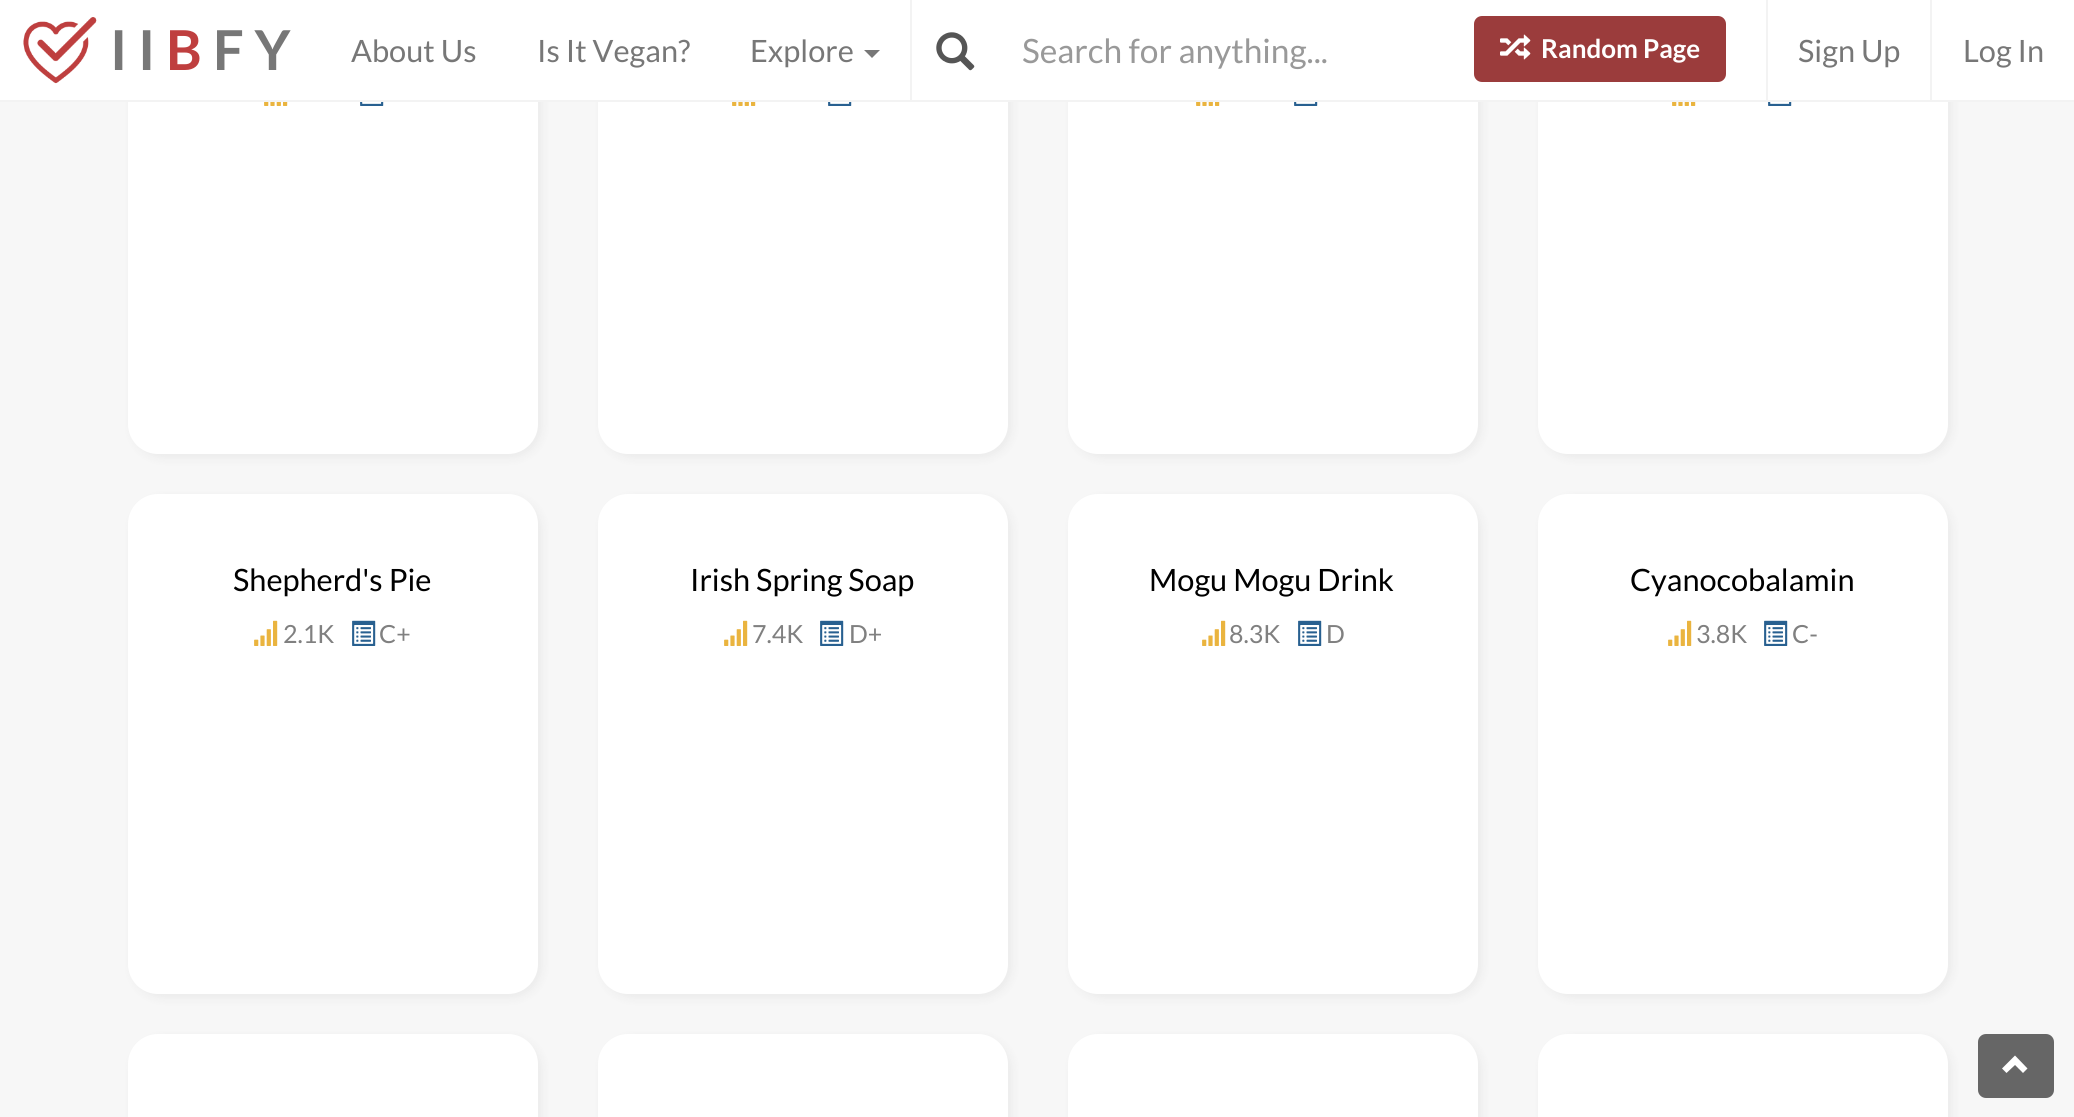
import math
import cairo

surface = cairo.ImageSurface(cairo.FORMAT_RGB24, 2074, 1117)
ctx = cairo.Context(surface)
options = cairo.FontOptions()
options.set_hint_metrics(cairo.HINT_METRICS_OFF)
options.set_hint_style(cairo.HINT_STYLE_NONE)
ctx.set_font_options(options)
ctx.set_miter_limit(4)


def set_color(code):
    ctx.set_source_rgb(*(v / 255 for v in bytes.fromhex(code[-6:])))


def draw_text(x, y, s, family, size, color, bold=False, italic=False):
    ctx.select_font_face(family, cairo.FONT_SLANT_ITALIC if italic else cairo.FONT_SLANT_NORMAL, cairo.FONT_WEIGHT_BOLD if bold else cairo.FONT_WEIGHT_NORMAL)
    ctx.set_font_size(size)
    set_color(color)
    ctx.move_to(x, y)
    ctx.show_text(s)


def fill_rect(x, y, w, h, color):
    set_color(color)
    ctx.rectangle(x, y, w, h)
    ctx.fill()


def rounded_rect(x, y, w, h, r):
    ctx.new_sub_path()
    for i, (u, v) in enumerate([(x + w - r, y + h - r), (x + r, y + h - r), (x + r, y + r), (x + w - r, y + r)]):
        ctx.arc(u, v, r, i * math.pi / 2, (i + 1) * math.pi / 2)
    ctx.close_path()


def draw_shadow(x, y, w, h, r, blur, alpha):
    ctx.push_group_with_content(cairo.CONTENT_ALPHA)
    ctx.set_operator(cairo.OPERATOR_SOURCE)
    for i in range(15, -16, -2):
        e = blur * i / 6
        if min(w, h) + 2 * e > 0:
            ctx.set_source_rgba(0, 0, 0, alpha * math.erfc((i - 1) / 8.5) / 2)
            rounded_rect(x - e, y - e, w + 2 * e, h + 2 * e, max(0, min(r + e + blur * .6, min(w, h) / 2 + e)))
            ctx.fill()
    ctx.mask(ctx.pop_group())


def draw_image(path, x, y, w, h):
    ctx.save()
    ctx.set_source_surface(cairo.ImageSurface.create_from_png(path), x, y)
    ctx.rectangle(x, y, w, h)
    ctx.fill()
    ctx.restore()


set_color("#f7f7f7")
ctx.paint()
set_color("#000000")
draw_shadow(132, -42, 410, 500, 30, 5, 0.05)
set_color("#ffffff")
rounded_rect(128, -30, 410, 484, 30)
ctx.fill()
set_color("#000000")
draw_shadow(602, -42, 410, 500, 30, 5, 0.05)
set_color("#ffffff")
rounded_rect(598, -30, 410, 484, 30)
ctx.fill()
set_color("#000000")
draw_shadow(1072, -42, 410, 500, 30, 5, 0.05)
set_color("#ffffff")
rounded_rect(1068, -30, 410, 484, 30)
ctx.fill()
set_color("#000000")
draw_shadow(1542, -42, 410, 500, 30, 5, 0.05)
set_color("#ffffff")
rounded_rect(1538, -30, 410, 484, 30)
ctx.fill()
fill_rect(0, 0, 2074, 100, "#ffffff")
fill_rect(0, 100, 2074, 2, "#f3f3f3")
draw_image("assets/img1.png", 23, 17, 74, 67)
draw_text(110, 70, "I I", "Lato", 55, "#777777", bold=True)
draw_text(166, 70, "B", "Lato", 55, "#bf3f3f", bold=True)
draw_text(213, 70, "F Y", "Lato", 55, "#777777", bold=True)
draw_text(351, 62, "About Us", "Lato", 30.75, "#777777")
draw_text(537, 62, "Is It Vegan?", "Lato", 30.75, "#777777")
draw_text(750, 62, "Explore", "Lato", 30.75, "#777777")
ctx.new_path()
ctx.move_to(864, 50)
ctx.line_to(880, 50)
ctx.line_to(872, 58)
ctx.close_path()
ctx.fill()
fill_rect(910, 0, 2, 100, "#f3f3f3")
draw_image("assets/img2.png", 936, 32, 39, 39)
draw_text(1022, 63, "Search for anything...", "Lato", 33.5, "#999999")
set_color("#9b3c3c")
rounded_rect(1475, 17, 250, 64, 7)
ctx.fill_preserve()
ctx.stroke()
draw_image("assets/img3.png", 1500, 34, 31, 26)
draw_text(1541, 58, "Random Page", "Lato", 26, "#ffffff", bold=True)
fill_rect(1766, 0, 2, 100, "#f3f3f3")
draw_text(1798, 62, "Sign Up", "Lato", 30.75, "#777777")
fill_rect(1930, 0, 2, 100, "#f3f3f3")
draw_text(1963, 62, "Log In", "Lato", 30.75, "#777777")
draw_image("assets/img4.png", 264, 102, 24, 4)
draw_image("assets/img5.png", 360, 102, 24, 4)
draw_image("assets/img4.png", 732, 102, 24, 4)
draw_image("assets/img5.png", 828, 102, 24, 4)
draw_image("assets/img4.png", 1196, 102, 24, 4)
draw_image("assets/img5.png", 1294, 102, 24, 4)
draw_image("assets/img4.png", 1672, 102, 24, 4)
draw_image("assets/img5.png", 1768, 102, 24, 4)
set_color("#000000")
draw_shadow(132, 498, 410, 500, 30, 5, 0.05)
set_color("#ffffff")
rounded_rect(128, 494, 410, 500, 30)
ctx.fill()
draw_text(233, 591, "Shepherd's Pie", "Lato", 30.75, "#000000")
draw_image("assets/img6.png", 254, 620, 24, 26)
draw_text(283, 643, "2.1K", "Lato", 25, "#808080")
draw_image("assets/img7.png", 352, 620, 24, 26)
draw_text(379, 643, "C+", "Lato", 25, "#808080")
set_color("#000000")
draw_shadow(602, 498, 410, 500, 30, 5, 0.05)
set_color("#ffffff")
rounded_rect(598, 494, 410, 500, 30)
ctx.fill()
draw_text(690, 591, "Irish Spring Soap", "Lato", 30.75, "#000000")
draw_image("assets/img6.png", 724, 620, 24, 26)
draw_text(752, 643, "7.4K", "Lato", 25, "#808080")
draw_image("assets/img7.png", 820, 620, 24, 26)
draw_text(849, 643, "D+", "Lato", 25, "#808080")
set_color("#000000")
draw_shadow(1072, 498, 410, 500, 30, 5, 0.05)
set_color("#ffffff")
rounded_rect(1068, 494, 410, 500, 30)
ctx.fill()
draw_text(1149, 591, "Mogu Mogu Drink", "Lato", 30.75, "#000000")
draw_image("assets/img6.png", 1202, 620, 24, 26)
draw_text(1229, 643, "8.3K", "Lato", 25, "#808080")
draw_image("assets/img7.png", 1298, 620, 24, 26)
draw_text(1326, 643, "D", "Lato", 25, "#808080")
set_color("#000000")
draw_shadow(1542, 498, 410, 500, 30, 5, 0.05)
set_color("#ffffff")
rounded_rect(1538, 494, 410, 500, 30)
ctx.fill()
draw_text(1630, 591, "Cyanocobalamin", "Lato", 30.75, "#000000")
draw_image("assets/img6.png", 1668, 620, 24, 26)
draw_text(1696, 643, "3.8K", "Lato", 25, "#808080")
draw_image("assets/img7.png", 1764, 620, 24, 26)
draw_text(1792, 643, "C-", "Lato", 25, "#808080")
set_color("#000000")
draw_shadow(132, 1038, 410, 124, 30, 5, 0.05)
set_color("#ffffff")
rounded_rect(128, 1034, 410, 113, 30)
ctx.fill()
set_color("#000000")
draw_shadow(602, 1038, 410, 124, 30, 5, 0.05)
set_color("#ffffff")
rounded_rect(598, 1034, 410, 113, 30)
ctx.fill()
set_color("#000000")
draw_shadow(1072, 1038, 410, 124, 30, 5, 0.05)
set_color("#ffffff")
rounded_rect(1068, 1034, 410, 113, 30)
ctx.fill()
set_color("#000000")
draw_shadow(1542, 1038, 410, 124, 30, 5, 0.05)
set_color("#ffffff")
rounded_rect(1538, 1034, 410, 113, 30)
ctx.fill()
set_color("#666666")
rounded_rect(1978, 1034, 76, 64, 8)
ctx.fill()
set_color("#ffffff")
ctx.new_path()
ctx.move_to(2027.5, 1068.5)
ctx.line_to(2023, 1073)
ctx.line_to(2015, 1065)
ctx.line_to(2006.5, 1073)
ctx.line_to(2002, 1068.5)
ctx.line_to(2015, 1055.5)
ctx.close_path()
ctx.fill()
surface.write_to_png("output.png")
